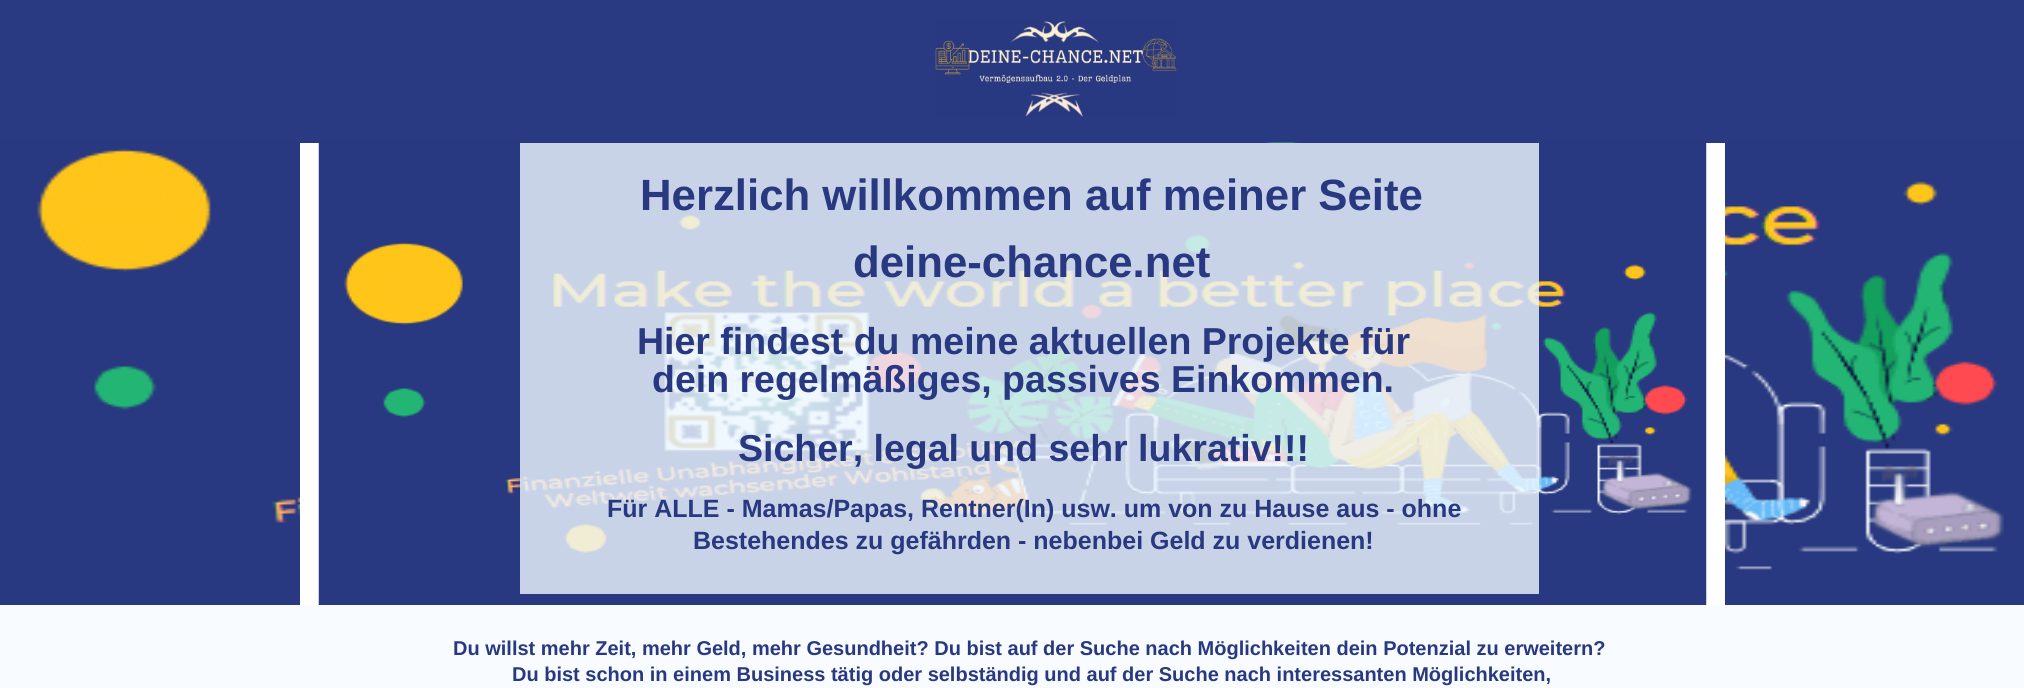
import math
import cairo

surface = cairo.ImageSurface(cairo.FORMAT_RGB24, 2024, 688)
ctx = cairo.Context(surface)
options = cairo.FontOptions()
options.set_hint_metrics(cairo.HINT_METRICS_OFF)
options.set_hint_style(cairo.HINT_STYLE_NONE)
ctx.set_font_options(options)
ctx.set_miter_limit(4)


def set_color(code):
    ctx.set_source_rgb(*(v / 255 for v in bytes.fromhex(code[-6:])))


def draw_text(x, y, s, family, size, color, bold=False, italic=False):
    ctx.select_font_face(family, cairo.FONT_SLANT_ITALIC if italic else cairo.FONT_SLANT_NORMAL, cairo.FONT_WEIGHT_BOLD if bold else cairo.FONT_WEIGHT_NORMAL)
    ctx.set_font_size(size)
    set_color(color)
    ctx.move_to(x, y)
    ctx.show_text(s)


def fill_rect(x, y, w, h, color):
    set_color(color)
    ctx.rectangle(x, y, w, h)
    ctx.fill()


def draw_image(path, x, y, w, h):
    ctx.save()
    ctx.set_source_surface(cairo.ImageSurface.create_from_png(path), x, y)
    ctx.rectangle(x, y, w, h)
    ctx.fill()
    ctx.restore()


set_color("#2a3a82")
ctx.paint()
draw_image("assets/img1.png", 935, 21, 242, 96)
draw_image("assets/img2.png", 0, 142, 2024, 463)
fill_rect(300, 143, 1425, 462, "#ffffff")
draw_image("assets/img3.png", 318, 142, 1389, 463)
ctx.set_source_rgba(0.929, 0.965, 1, 0.81)
ctx.rectangle(520, 143, 1019, 451)
ctx.fill()
draw_text(640, 210, "Herzlich willkommen auf meiner Seite", "Liberation Sans", 43.75, "#293981", bold=True)
draw_text(853, 277, "deine-chance.net", "Liberation Sans", 43.75, "#293981", bold=True)
draw_text(637, 354, "Hier findest du meine aktuellen Projekte für", "Liberation Sans", 37.5, "#293981", bold=True)
draw_text(652, 392, "dein regelmäßiges, passives Einkommen.", "Liberation Sans", 37.5, "#293981", bold=True)
draw_text(738, 461, "Sicher, legal und sehr lukrativ!!!", "Liberation Sans", 37.5, "#293981", bold=True)
draw_text(607, 517, "Für ALLE - Mamas/Papas, Rentner(In) usw. um von zu Hause aus - ohne", "Liberation Sans", 25, "#293981", bold=True)
draw_text(693, 549, "Bestehendes zu gefährden - nebenbei Geld zu verdienen!", "Liberation Sans", 25, "#293981", bold=True)
fill_rect(0, 605, 2024, 83, "#f8fbff")
draw_text(453, 655, "Du willst mehr Zeit, mehr Geld, mehr Gesundheit? Du bist auf der Suche nach Möglichkeiten dein Potenzial zu erweitern?", "Liberation Sans", 20, "#293981", bold=True)
draw_text(512, 681, "Du bist schon in einem Business tätig oder selbständig und auf der Suche nach interessanten Möglichkeiten,", "Liberation Sans", 20, "#293981", bold=True)
surface.write_to_png("output.png")
